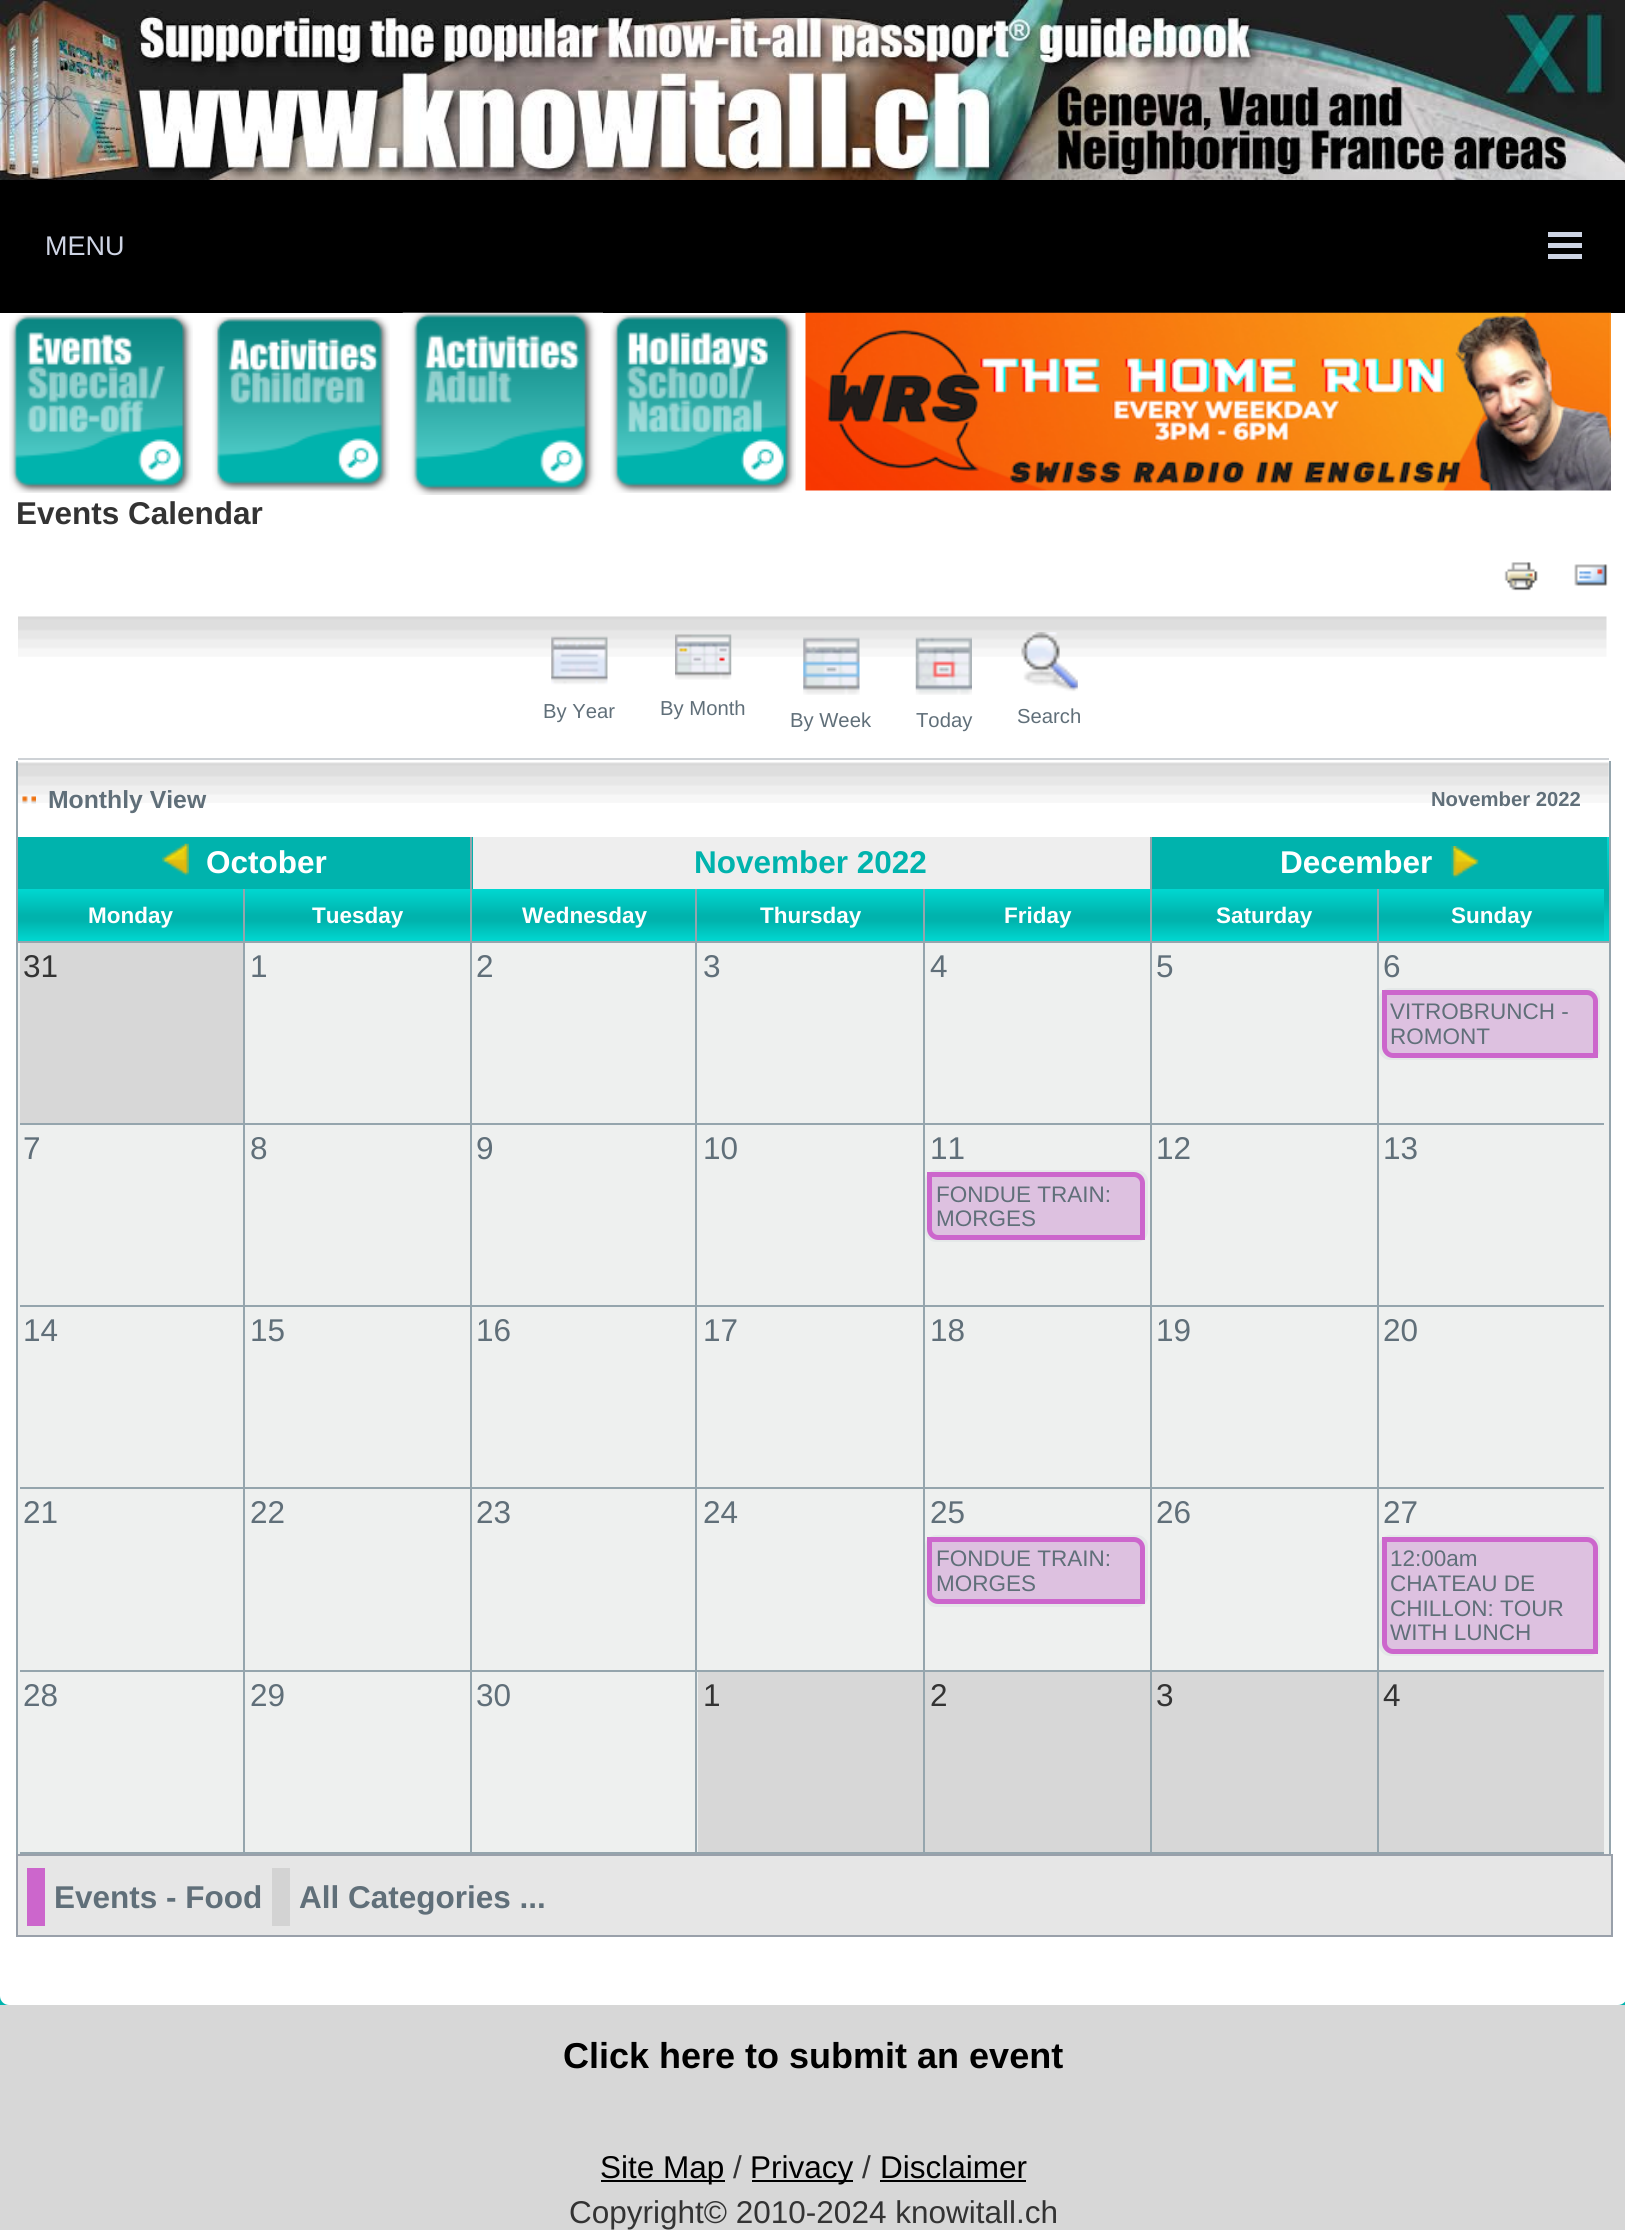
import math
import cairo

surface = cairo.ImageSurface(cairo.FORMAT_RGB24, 1625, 2230)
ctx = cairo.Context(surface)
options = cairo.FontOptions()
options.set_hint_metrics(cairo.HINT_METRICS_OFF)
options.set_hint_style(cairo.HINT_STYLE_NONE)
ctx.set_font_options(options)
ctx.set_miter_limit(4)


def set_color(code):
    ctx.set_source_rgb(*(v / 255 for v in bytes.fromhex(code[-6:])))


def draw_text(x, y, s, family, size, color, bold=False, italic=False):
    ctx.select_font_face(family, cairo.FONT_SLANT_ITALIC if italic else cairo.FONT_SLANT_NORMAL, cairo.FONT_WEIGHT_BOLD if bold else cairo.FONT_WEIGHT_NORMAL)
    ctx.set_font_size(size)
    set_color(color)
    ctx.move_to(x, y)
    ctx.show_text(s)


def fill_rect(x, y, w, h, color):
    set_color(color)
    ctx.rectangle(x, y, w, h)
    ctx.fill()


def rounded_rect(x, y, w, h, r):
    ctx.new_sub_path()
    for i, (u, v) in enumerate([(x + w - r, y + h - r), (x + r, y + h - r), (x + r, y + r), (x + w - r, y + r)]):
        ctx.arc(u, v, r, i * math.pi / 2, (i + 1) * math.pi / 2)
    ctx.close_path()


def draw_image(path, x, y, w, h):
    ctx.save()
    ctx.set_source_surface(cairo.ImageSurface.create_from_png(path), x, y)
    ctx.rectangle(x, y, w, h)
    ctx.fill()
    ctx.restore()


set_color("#00b3ad")
ctx.paint()
set_color("#ffffff")
rounded_rect(0, 0, 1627, 2005, 9)
ctx.fill()
draw_image("assets/img1.png", 0, 0, 1625, 180)
fill_rect(0, 180, 1625, 133, "#000000")
fill_rect(1548, 232, 34, 5, "#ced4e4")
draw_text(45, 255, "MENU", "Liberation Sans", 27, "#ced4e4")
fill_rect(1548, 243, 34, 5, "#ced4e4")
fill_rect(1548, 254, 34, 5, "#ced4e4")
draw_image("assets/img2.png", 9, 315, 184, 178)
draw_image("assets/img3.png", 212, 317, 178, 174)
draw_image("assets/img4.png", 402, 312, 201, 183)
draw_image("assets/img5.png", 610, 315, 186, 178)
draw_image("assets/img6.png", 805, 312, 806, 179)
draw_text(16, 524, "Events Calendar", "Liberation Sans", 31.5, "#333333", bold=True)
draw_image("assets/img7.png", 1504, 562, 34, 29)
draw_image("assets/img8.png", 1574, 564, 34, 22)
draw_image("assets/img9.png", 18, 616, 1589, 41)
fill_rect(16, 758, 1593, 2, "#ced2d6")
fill_rect(16, 758, 2, 3, "#ffffff")
draw_image("assets/img10.png", 551, 636, 57, 49)
draw_text(543, 718, "By Year", "Liberation Sans", 20.25, "#606f79")
draw_image("assets/img11.png", 675, 634, 57, 46)
draw_text(660, 715, "By Month", "Liberation Sans", 20.25, "#606f79")
draw_image("assets/img12.png", 803, 637, 57, 58)
draw_text(790, 727, "By Week", "Liberation Sans", 20.25, "#606f79")
draw_image("assets/img13.png", 915, 637, 57, 58)
draw_text(916, 727, "Today", "Liberation Sans", 20.25, "#606f79")
draw_image("assets/img14.png", 1021, 632, 57, 60)
draw_text(1017, 723, "Search", "Liberation Sans", 20.25, "#606f79")
fill_rect(1609, 761, 2, 1093, "#95a5ad")
fill_rect(16, 941, 1595, 2, "#95a5ad")
fill_rect(16, 761, 2, 1093, "#95a5ad")
draw_image("assets/img15.png", 18, 762, 1591, 41)
draw_image("assets/img16.png", 22, 796, 14, 8)
draw_text(48, 808, "Monthly View", "Liberation Sans", 24.75, "#606f79", bold=True)
draw_text(1431, 806, "November 2022", "Liberation Sans", 20.25, "#606f79", bold=True)
gradient = cairo.LinearGradient(813, 837, 813, 941)
gradient.add_color_stop_rgba(0, 0, 0.847, 0.82, 1)
gradient.add_color_stop_rgba(0.5, 0, 0.702, 0.678, 1)
gradient.add_color_stop_rgba(0.61, 0, 0.702, 0.678, 1)
gradient.add_color_stop_rgba(1, 0, 0.847, 0.82, 1)
ctx.set_source(gradient)
ctx.rectangle(1604, 837, 5, 104)
ctx.fill()
fill_rect(18, 837, 455, 52, "#00b3ad")
fill_rect(470, 837, 2, 52, "#95a5ad")
draw_image("assets/img17.png", 162, 843, 27, 33)
draw_text(206, 873, "October", "Liberation Sans", 31.5, "#ffffff", bold=True)
fill_rect(473, 837, 677, 52, "#eeeeee")
fill_rect(1150, 837, 2, 106, "#95a5ad")
draw_text(694, 873, "November 2022", "Liberation Sans", 31.5, "#00b3ad", bold=True)
fill_rect(1152, 837, 455, 52, "#00b3ad")
draw_text(1280, 873, "December", "Liberation Sans", 31.5, "#ffffff", bold=True)
draw_image("assets/img18.png", 1451, 846, 28, 32)
gradient = cairo.LinearGradient(132, 889, 132, 941)
gradient.add_color_stop_rgba(0, 0, 0.847, 0.82, 1)
gradient.add_color_stop_rgba(0.5, 0, 0.702, 0.678, 1)
gradient.add_color_stop_rgba(0.61, 0, 0.702, 0.678, 1)
gradient.add_color_stop_rgba(1, 0, 0.847, 0.82, 1)
ctx.set_source(gradient)
ctx.rectangle(18, 889, 225, 52)
ctx.fill()
fill_rect(243, 889, 2, 54, "#95a5ad")
draw_text(88, 923, "Monday", "Liberation Sans", 22.5, "#ffffff", bold=True)
gradient = cairo.LinearGradient(359, 889, 359, 941)
gradient.add_color_stop_rgba(0, 0, 0.847, 0.82, 1)
gradient.add_color_stop_rgba(0.5, 0, 0.702, 0.678, 1)
gradient.add_color_stop_rgba(0.61, 0, 0.702, 0.678, 1)
gradient.add_color_stop_rgba(1, 0, 0.847, 0.82, 1)
ctx.set_source(gradient)
ctx.rectangle(245, 889, 228, 52)
ctx.fill()
fill_rect(470, 889, 2, 54, "#95a5ad")
draw_text(312, 923, "Tuesday", "Liberation Sans", 22.5, "#ffffff", bold=True)
gradient = cairo.LinearGradient(585, 889, 585, 941)
gradient.add_color_stop_rgba(0, 0, 0.847, 0.82, 1)
gradient.add_color_stop_rgba(0.5, 0, 0.702, 0.678, 1)
gradient.add_color_stop_rgba(0.61, 0, 0.702, 0.678, 1)
gradient.add_color_stop_rgba(1, 0, 0.847, 0.82, 1)
ctx.set_source(gradient)
ctx.rectangle(473, 889, 225, 52)
ctx.fill()
fill_rect(695, 889, 2, 54, "#95a5ad")
draw_text(522, 923, "Wednesday", "Liberation Sans", 22.5, "#ffffff", bold=True)
gradient = cairo.LinearGradient(811, 889, 811, 941)
gradient.add_color_stop_rgba(0, 0, 0.847, 0.82, 1)
gradient.add_color_stop_rgba(0.5, 0, 0.702, 0.678, 1)
gradient.add_color_stop_rgba(0.61, 0, 0.702, 0.678, 1)
gradient.add_color_stop_rgba(1, 0, 0.847, 0.82, 1)
ctx.set_source(gradient)
ctx.rectangle(698, 889, 225, 52)
ctx.fill()
fill_rect(923, 889, 2, 54, "#95a5ad")
draw_text(760, 923, "Thursday", "Liberation Sans", 22.5, "#ffffff", bold=True)
gradient = cairo.LinearGradient(1038, 889, 1038, 941)
gradient.add_color_stop_rgba(0, 0, 0.847, 0.82, 1)
gradient.add_color_stop_rgba(0.5, 0, 0.702, 0.678, 1)
gradient.add_color_stop_rgba(0.61, 0, 0.702, 0.678, 1)
gradient.add_color_stop_rgba(1, 0, 0.847, 0.82, 1)
ctx.set_source(gradient)
ctx.rectangle(925, 889, 225, 52)
ctx.fill()
draw_text(1004, 923, "Friday", "Liberation Sans", 22.5, "#ffffff", bold=True)
gradient = cairo.LinearGradient(1266, 889, 1266, 941)
gradient.add_color_stop_rgba(0, 0, 0.847, 0.82, 1)
gradient.add_color_stop_rgba(0.5, 0, 0.702, 0.678, 1)
gradient.add_color_stop_rgba(0.61, 0, 0.702, 0.678, 1)
gradient.add_color_stop_rgba(1, 0, 0.847, 0.82, 1)
ctx.set_source(gradient)
ctx.rectangle(1152, 889, 225, 52)
ctx.fill()
fill_rect(1377, 889, 2, 54, "#95a5ad")
draw_text(1216, 923, "Saturday", "Liberation Sans", 22.5, "#ffffff", bold=True)
gradient = cairo.LinearGradient(1492, 889, 1492, 941)
gradient.add_color_stop_rgba(0, 0, 0.847, 0.82, 1)
gradient.add_color_stop_rgba(0.5, 0, 0.702, 0.678, 1)
gradient.add_color_stop_rgba(0.61, 0, 0.702, 0.678, 1)
gradient.add_color_stop_rgba(1, 0, 0.847, 0.82, 1)
ctx.set_source(gradient)
ctx.rectangle(1379, 889, 225, 52)
ctx.fill()
draw_text(1451, 923, "Sunday", "Liberation Sans", 22.5, "#ffffff", bold=True)
fill_rect(18, 943, 1591, 911, "#eef0ef")
fill_rect(20, 943, 223, 180, "#d7d7d7")
fill_rect(243, 943, 2, 911, "#95a5ad")
fill_rect(20, 1123, 225, 2, "#95a5ad")
fill_rect(470, 943, 2, 911, "#95a5ad")
fill_rect(245, 1123, 228, 2, "#95a5ad")
fill_rect(695, 943, 2, 911, "#95a5ad")
fill_rect(473, 1123, 225, 2, "#95a5ad")
fill_rect(923, 943, 2, 911, "#95a5ad")
fill_rect(698, 1123, 227, 2, "#95a5ad")
fill_rect(1150, 943, 2, 911, "#95a5ad")
fill_rect(925, 1123, 227, 2, "#95a5ad")
fill_rect(1377, 943, 2, 911, "#95a5ad")
fill_rect(1152, 1123, 452, 2, "#95a5ad")
draw_text(23, 977, "31", "Liberation Sans", 31.5, "#333333")
draw_text(250, 977, "1", "Liberation Sans", 31.5, "#606f79")
draw_text(476, 977, "2", "Liberation Sans", 31.5, "#606f79")
draw_text(703, 977, "3", "Liberation Sans", 31.5, "#606f79")
draw_text(930, 977, "4", "Liberation Sans", 31.5, "#606f79")
draw_text(1156, 977, "5", "Liberation Sans", 31.5, "#606f79")
draw_text(1383, 977, "6", "Liberation Sans", 31.5, "#606f79")
set_color("#e4e8e8")
rounded_rect(1379, 988, 221, 72, 11)
ctx.fill()
ctx.set_source_rgba(0.8, 0.4, 0.8, 0.3)
ctx.new_path()
ctx.move_to(1384.5, 992.5)
ctx.line_to(1587, 992.5)
ctx.curve_to(1591.5, 992.5, 1595.5, 996.5, 1595.5, 1001)
ctx.line_to(1595.5, 1055.5)
ctx.line_to(1393, 1055.5)
ctx.curve_to(1388.5, 1055.5, 1384.5, 1051.5, 1384.5, 1047)
ctx.close_path()
ctx.fill_preserve()
set_color("#cc66cc")
ctx.set_line_width(5)
ctx.stroke()
draw_text(1390, 1019, "VITROBRUNCH -", "Liberation Sans", 22.5, "#606f79")
draw_text(1390, 1044, "ROMONT", "Liberation Sans", 22.5, "#606f79")
draw_text(23, 1159, "7", "Liberation Sans", 31.5, "#606f79")
draw_text(250, 1159, "8", "Liberation Sans", 31.5, "#606f79")
draw_text(476, 1159, "9", "Liberation Sans", 31.5, "#606f79")
draw_text(703, 1159, "10", "Liberation Sans", 31.5, "#606f79")
draw_text(930, 1159, "11", "Liberation Sans", 31.5, "#606f79")
draw_text(1156, 1159, "12", "Liberation Sans", 31.5, "#606f79")
draw_text(1383, 1159, "13", "Liberation Sans", 31.5, "#606f79")
set_color("#e4e8e8")
rounded_rect(925, 1170, 223, 72, 11)
ctx.fill()
ctx.set_source_rgba(0.8, 0.4, 0.8, 0.3)
ctx.new_path()
ctx.move_to(929.5, 1174.5)
ctx.line_to(1134, 1174.5)
ctx.curve_to(1138.5, 1174.5, 1142.5, 1178.5, 1142.5, 1183)
ctx.line_to(1142.5, 1237.5)
ctx.line_to(938, 1237.5)
ctx.curve_to(933.5, 1237.5, 929.5, 1233.5, 929.5, 1229)
ctx.close_path()
ctx.fill_preserve()
set_color("#cc66cc")
ctx.stroke()
draw_text(936, 1202, "FONDUE TRAIN:", "Liberation Sans", 22.5, "#606f79")
draw_text(936, 1226, "MORGES", "Liberation Sans", 22.5, "#606f79")
fill_rect(20, 1305, 1584, 2, "#95a5ad")
draw_text(23, 1341, "14", "Liberation Sans", 31.5, "#606f79")
draw_text(250, 1341, "15", "Liberation Sans", 31.5, "#606f79")
draw_text(476, 1341, "16", "Liberation Sans", 31.5, "#606f79")
draw_text(703, 1341, "17", "Liberation Sans", 31.5, "#606f79")
draw_text(930, 1341, "18", "Liberation Sans", 31.5, "#606f79")
draw_text(1156, 1341, "19", "Liberation Sans", 31.5, "#606f79")
draw_text(1383, 1341, "20", "Liberation Sans", 31.5, "#606f79")
fill_rect(20, 1487, 1584, 2, "#95a5ad")
draw_text(23, 1523, "21", "Liberation Sans", 31.5, "#606f79")
draw_text(250, 1523, "22", "Liberation Sans", 31.5, "#606f79")
draw_text(476, 1523, "23", "Liberation Sans", 31.5, "#606f79")
draw_text(703, 1523, "24", "Liberation Sans", 31.5, "#606f79")
draw_text(930, 1523, "25", "Liberation Sans", 31.5, "#606f79")
draw_text(1156, 1523, "26", "Liberation Sans", 31.5, "#606f79")
draw_text(1383, 1523, "27", "Liberation Sans", 31.5, "#606f79")
set_color("#e4e8e8")
rounded_rect(925, 1535, 223, 72, 11)
ctx.fill()
ctx.set_source_rgba(0.8, 0.4, 0.8, 0.3)
ctx.new_path()
ctx.move_to(929.5, 1539.5)
ctx.line_to(1134, 1539.5)
ctx.curve_to(1138.5, 1539.5, 1142.5, 1543.5, 1142.5, 1548)
ctx.line_to(1142.5, 1601.5)
ctx.line_to(938, 1601.5)
ctx.curve_to(933.5, 1601.5, 929.5, 1597.5, 929.5, 1593)
ctx.close_path()
ctx.fill_preserve()
set_color("#cc66cc")
ctx.stroke()
draw_text(936, 1566, "FONDUE TRAIN:", "Liberation Sans", 22.5, "#606f79")
draw_text(936, 1591, "MORGES", "Liberation Sans", 22.5, "#606f79")
set_color("#e4e8e8")
rounded_rect(1379, 1535, 221, 121, 11)
ctx.fill()
ctx.set_source_rgba(0.8, 0.4, 0.8, 0.3)
ctx.new_path()
ctx.move_to(1384.5, 1539.5)
ctx.line_to(1587, 1539.5)
ctx.curve_to(1591.5, 1539.5, 1595.5, 1543.5, 1595.5, 1548)
ctx.line_to(1595.5, 1651.5)
ctx.line_to(1393, 1651.5)
ctx.curve_to(1388.5, 1651.5, 1384.5, 1647.5, 1384.5, 1643)
ctx.close_path()
ctx.fill_preserve()
set_color("#cc66cc")
ctx.stroke()
draw_text(1390, 1566, "12:00am", "Liberation Sans", 22.5, "#606f79")
draw_text(1390, 1591, "CHATEAU DE", "Liberation Sans", 22.5, "#606f79")
draw_text(1390, 1616, "CHILLON: TOUR", "Liberation Sans", 22.5, "#606f79")
draw_text(1390, 1640, "WITH LUNCH", "Liberation Sans", 22.5, "#606f79")
fill_rect(20, 1670, 1584, 2, "#95a5ad")
fill_rect(698, 1672, 225, 180, "#d7d7d7")
fill_rect(925, 1672, 225, 180, "#d7d7d7")
fill_rect(1152, 1672, 225, 180, "#d7d7d7")
fill_rect(1379, 1672, 225, 180, "#d7d7d7")
fill_rect(20, 1852, 1584, 2, "#95a5ad")
draw_text(23, 1706, "28", "Liberation Sans", 31.5, "#606f79")
draw_text(250, 1706, "29", "Liberation Sans", 31.5, "#606f79")
draw_text(476, 1706, "30", "Liberation Sans", 31.5, "#606f79")
draw_text(703, 1706, "1", "Liberation Sans", 31.5, "#333333")
draw_text(930, 1706, "2", "Liberation Sans", 31.5, "#333333")
draw_text(1156, 1706, "3", "Liberation Sans", 31.5, "#333333")
draw_text(1383, 1706, "4", "Liberation Sans", 31.5, "#333333")
set_color("#e6e6e6")
ctx.rectangle(17, 1855, 1595, 81)
ctx.fill_preserve()
set_color("#99a0aa")
ctx.set_line_width(2)
ctx.stroke()
fill_rect(27, 1868, 18, 58, "#cc66cc")
draw_text(54, 1908, "Events - Food", "Liberation Sans", 31.5, "#606f79", bold=True)
fill_rect(272, 1868, 18, 58, "#d3d3d3")
draw_text(299, 1908, "All Categories ...", "Liberation Sans", 31.5, "#606f79", bold=True)
fill_rect(0, 2005, 1625, 225, "#d7d7d7")
draw_text(563, 2068, "Click here to submit an event", "Liberation Sans", 36, "#000000", bold=True)
fill_rect(601, 2180, 124, 2, "#000000")
draw_text(600, 2178, "Site Map", "Liberation Sans", 31.5, "#000000")
draw_text(733, 2178, "/", "Liberation Sans", 31.5, "#333333")
fill_rect(752, 2180, 101, 2, "#000000")
draw_text(750, 2178, "Privacy", "Liberation Sans", 31.5, "#000000")
draw_text(862, 2178, "/", "Liberation Sans", 31.5, "#333333")
draw_text(880, 2178, "Disclaimer", "Liberation Sans", 31.5, "#000000")
fill_rect(880, 2180, 146, 2, "#000000")
draw_text(569, 2223, "Copyright© 2010-2024 knowitall.ch", "Liberation Sans", 31.5, "#333333")
surface.write_to_png("output.png")
